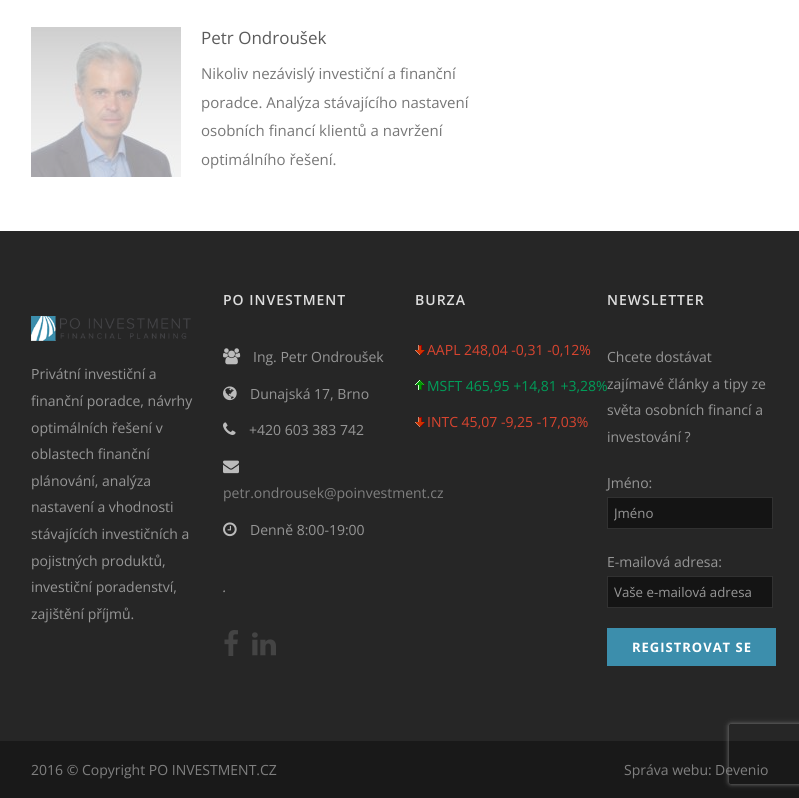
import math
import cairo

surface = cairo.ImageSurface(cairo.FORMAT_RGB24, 799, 798)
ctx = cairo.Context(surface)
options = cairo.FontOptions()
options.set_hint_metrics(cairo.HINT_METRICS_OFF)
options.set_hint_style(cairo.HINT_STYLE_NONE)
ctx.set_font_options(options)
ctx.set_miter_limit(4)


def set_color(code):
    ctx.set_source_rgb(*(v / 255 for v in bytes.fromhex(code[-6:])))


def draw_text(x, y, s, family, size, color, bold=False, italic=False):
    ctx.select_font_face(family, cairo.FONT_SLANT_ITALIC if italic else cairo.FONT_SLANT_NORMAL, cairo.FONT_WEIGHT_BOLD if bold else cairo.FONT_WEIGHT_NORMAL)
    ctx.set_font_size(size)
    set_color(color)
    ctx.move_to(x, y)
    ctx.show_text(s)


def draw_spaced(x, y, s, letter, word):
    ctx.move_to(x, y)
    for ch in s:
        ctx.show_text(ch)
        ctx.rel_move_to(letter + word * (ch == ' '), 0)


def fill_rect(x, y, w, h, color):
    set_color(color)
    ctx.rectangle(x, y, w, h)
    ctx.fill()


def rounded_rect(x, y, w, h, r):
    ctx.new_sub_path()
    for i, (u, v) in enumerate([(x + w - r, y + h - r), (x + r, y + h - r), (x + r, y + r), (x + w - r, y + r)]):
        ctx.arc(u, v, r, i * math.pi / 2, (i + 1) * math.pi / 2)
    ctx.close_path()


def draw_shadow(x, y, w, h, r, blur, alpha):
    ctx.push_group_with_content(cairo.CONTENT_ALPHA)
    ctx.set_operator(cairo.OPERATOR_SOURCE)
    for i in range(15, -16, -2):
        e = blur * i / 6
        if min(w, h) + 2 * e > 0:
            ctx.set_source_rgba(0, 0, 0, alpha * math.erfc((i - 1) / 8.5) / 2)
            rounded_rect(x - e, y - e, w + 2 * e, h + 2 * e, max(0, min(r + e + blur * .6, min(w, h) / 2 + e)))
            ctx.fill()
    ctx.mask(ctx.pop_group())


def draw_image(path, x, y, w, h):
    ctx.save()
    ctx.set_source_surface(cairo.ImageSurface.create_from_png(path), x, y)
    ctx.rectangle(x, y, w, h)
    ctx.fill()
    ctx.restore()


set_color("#ffffff")
ctx.paint()
draw_image("assets/img1.png", 31, 27, 150, 150)
draw_text(201, 44, "Petr Ondroušek", "Open Sans", 17, "#5b5b5b")
draw_text(201, 79, "Nikoliv nezávislý investiční a finanční", "Open Sans", 15, "#777777")
draw_text(201, 108, "poradce. Analýza stávajícího nastavení", "Open Sans", 15, "#777777")
draw_text(201, 136, "osobních financí klientů a navržení", "Open Sans", 15, "#777777")
draw_text(201, 165, "optimálního řešení.", "Open Sans", 15, "#777777")
fill_rect(0, 231, 799, 510, "#262626")
draw_image("assets/img2.png", 31, 316, 160, 25)
draw_text(31, 379, "Privátní investiční a", "Open Sans", 14, "#969696")
draw_text(31, 406, "finanční poradce, návrhy", "Open Sans", 14, "#969696")
draw_text(31, 433, "optimálních řešení v", "Open Sans", 14, "#969696")
draw_text(31, 459, "oblastech finanční", "Open Sans", 14, "#969696")
draw_text(31, 486, "plánování, analýza", "Open Sans", 14, "#969696")
draw_text(31, 512, "nastavení a vhodnosti", "Open Sans", 14, "#969696")
draw_text(31, 539, "stávajících investičních a", "Open Sans", 14, "#969696")
draw_text(31, 566, "pojistných produktů,", "Open Sans", 14, "#969696")
draw_text(31, 592, "investiční poradenství,", "Open Sans", 14, "#969696")
draw_text(31, 619, "zajištění příjmů.", "Open Sans", 14, "#969696")
ctx.select_font_face("Open Sans SemiBold")
set_color("#dddddd")
draw_spaced(223, 305, "PO INVESTMENT", 1, 0)
draw_image("assets/img3.png", 223, 348, 18, 17)
draw_text(253, 362, "Ing. Petr Ondroušek", "Open Sans", 14, "#969696")
draw_image("assets/img4.png", 223, 386, 14, 15)
draw_text(250, 399, "Dunajská 17, Brno", "Open Sans", 14, "#969696")
draw_image("assets/img5.png", 223, 422, 13, 13)
draw_text(249, 435, "+420 603 383 742", "Open Sans", 14, "#969696")
draw_image("assets/img6.png", 223, 460, 16, 14)
draw_text(223, 498, "petr.ondrousek@poinvestment.cz", "Open Sans", 14, "#7f7f7f")
draw_image("assets/img7.png", 223, 522, 14, 15)
draw_text(250, 535, "Denně 8:00-19:00", "Open Sans", 14, "#969696")
draw_text(223, 592, ".", "Open Sans", 14, "#969696", italic=True)
draw_image("assets/img8.png", 224, 630, 14, 26)
draw_image("assets/img9.png", 252, 632, 24, 24)
ctx.select_font_face("Open Sans SemiBold")
set_color("#dddddd")
draw_spaced(415, 305, "BURZA", 1, 0)
draw_image("assets/img10.png", 415, 345, 10, 10)
draw_text(427, 355, "AAPL 248,04 -0,31 -0,12%", "Open Sans", 14, "#d8442f")
draw_image("assets/img11.png", 415, 380, 10, 10)
draw_text(427, 391, "MSFT 465,95 +14,81 +3,28%", "Open Sans", 14, "#009d59")
draw_image("assets/img10.png", 415, 417, 10, 10)
draw_text(427, 427, "INTC 45,07 -9,25 -17,03%", "Open Sans", 14, "#d8442f")
ctx.select_font_face("Open Sans SemiBold")
set_color("#dddddd")
draw_spaced(607, 305, "NEWSLETTER", 1, 0)
draw_text(607, 362, "Chcete dostávat", "Open Sans", 14, "#969696")
draw_text(607, 389, "zajímavé články a tipy ze", "Open Sans", 14, "#969696")
draw_text(607, 415, "světa osobních financí a", "Open Sans", 14, "#969696")
draw_text(607, 442, "investování ?", "Open Sans", 14, "#969696")
draw_text(607, 488, "Jméno:", "Open Sans", 14, "#969696")
set_color("#141414")
ctx.rectangle(607.5, 497.5, 165, 31)
ctx.fill_preserve()
set_color("#313131")
ctx.set_line_width(1)
ctx.stroke()
ctx.save()
ctx.rectangle(614, 504, 152, 18)
ctx.clip()
draw_text(614, 518, "Jméno", "Open Sans", 13.25, "#969696")
ctx.restore()
draw_text(607, 567, "E-mailová adresa:", "Open Sans", 14, "#969696")
set_color("#141414")
ctx.rectangle(607.5, 576.5, 165, 31)
ctx.fill_preserve()
set_color("#313131")
ctx.stroke()
draw_text(614, 597, "Vaše e-mailová adresa", "Open Sans", 13.25, "#969696")
fill_rect(607, 628, 169, 38, "#3c8eac")
ctx.select_font_face("Open Sans", cairo.FONT_SLANT_NORMAL, cairo.FONT_WEIGHT_BOLD)
ctx.set_font_size(13)
set_color("#ffffff")
draw_spaced(632, 652, "REGISTROVAT SE", 1, 0)
fill_rect(0, 741, 799, 57, "#191919")
draw_text(31, 775, "2016 © Copyright PO INVESTMENT.CZ", "Open Sans", 14, "#7f7f7f")
draw_text(624, 775, "Správa webu:", "Open Sans", 14, "#7f7f7f")
draw_text(715, 775, "Devenio", "Open Sans", 14, "#7f7f7f")
ctx.save()
ctx.set_fill_rule(cairo.FILL_RULE_EVEN_ODD)
ctx.new_path()
ctx.move_to(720, 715)
ctx.line_to(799, 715)
ctx.line_to(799, 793)
ctx.line_to(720, 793)
ctx.close_path()
ctx.move_to(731, 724)
ctx.line_to(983, 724)
ctx.curve_to(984, 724, 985, 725, 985, 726)
ctx.line_to(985, 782)
ctx.curve_to(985, 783, 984, 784, 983, 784)
ctx.line_to(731, 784)
ctx.curve_to(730, 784, 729, 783, 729, 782)
ctx.line_to(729, 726)
ctx.curve_to(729, 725, 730, 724, 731, 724)
ctx.close_path()
ctx.clip()
set_color("#808080")
draw_shadow(729, 724, 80, 60, 2, 2.5, 1)
ctx.restore()
surface.write_to_png("output.png")
